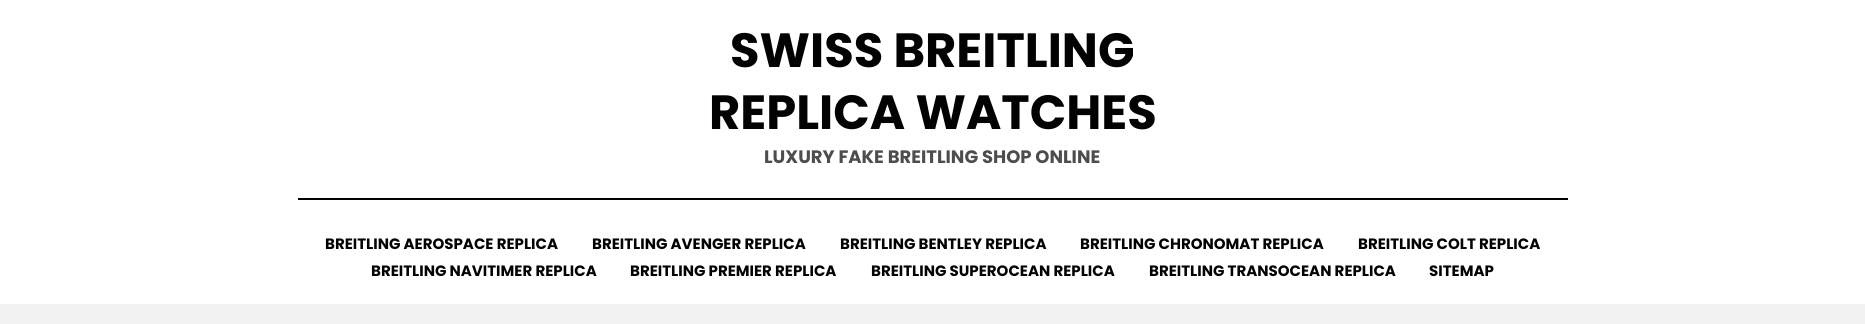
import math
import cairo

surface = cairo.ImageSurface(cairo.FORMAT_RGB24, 1865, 324)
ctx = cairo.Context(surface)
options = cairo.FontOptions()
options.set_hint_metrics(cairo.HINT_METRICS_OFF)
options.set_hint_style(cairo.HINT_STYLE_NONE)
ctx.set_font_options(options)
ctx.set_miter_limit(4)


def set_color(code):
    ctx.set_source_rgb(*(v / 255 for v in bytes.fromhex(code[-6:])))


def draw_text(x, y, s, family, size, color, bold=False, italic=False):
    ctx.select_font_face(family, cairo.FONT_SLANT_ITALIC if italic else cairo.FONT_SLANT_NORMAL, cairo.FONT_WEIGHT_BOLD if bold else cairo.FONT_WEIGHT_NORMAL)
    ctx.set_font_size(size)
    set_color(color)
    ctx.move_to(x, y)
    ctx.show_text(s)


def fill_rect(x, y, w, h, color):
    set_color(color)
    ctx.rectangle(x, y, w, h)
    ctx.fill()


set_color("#f2f2f2")
ctx.paint()
fill_rect(0, 0, 1865, 304, "#ffffff")
draw_text(730, 67, "SWISS BREITLING", "Poppins", 48, "#020202", bold=True)
draw_text(709, 129, "REPLICA WATCHES", "Poppins", 48, "#020202", bold=True)
draw_text(764, 163, "LUXURY FAKE BREITLING SHOP ONLINE", "Poppins", 18, "#4d4d4d", bold=True)
fill_rect(298, 198, 1270, 2, "#020202")
draw_text(325, 249, "BREITLING AEROSPACE REPLICA", "Poppins", 15, "#020202", bold=True)
draw_text(592, 249, "BREITLING AVENGER REPLICA", "Poppins", 15, "#020202", bold=True)
draw_text(840, 249, "BREITLING BENTLEY REPLICA", "Poppins", 15, "#020202", bold=True)
draw_text(1080, 249, "BREITLING CHRONOMAT REPLICA", "Poppins", 15, "#020202", bold=True)
draw_text(1358, 249, "BREITLING COLT REPLICA", "Poppins", 15, "#020202", bold=True)
draw_text(371, 276, "BREITLING NAVITIMER REPLICA", "Poppins", 15, "#020202", bold=True)
draw_text(630, 276, "BREITLING PREMIER REPLICA", "Poppins", 15, "#020202", bold=True)
draw_text(871, 276, "BREITLING SUPEROCEAN REPLICA", "Poppins", 15, "#020202", bold=True)
draw_text(1149, 276, "BREITLING TRANSOCEAN REPLICA", "Poppins", 15, "#020202", bold=True)
draw_text(1429, 276, "SITEMAP", "Poppins", 15, "#020202", bold=True)
surface.write_to_png("output.png")
